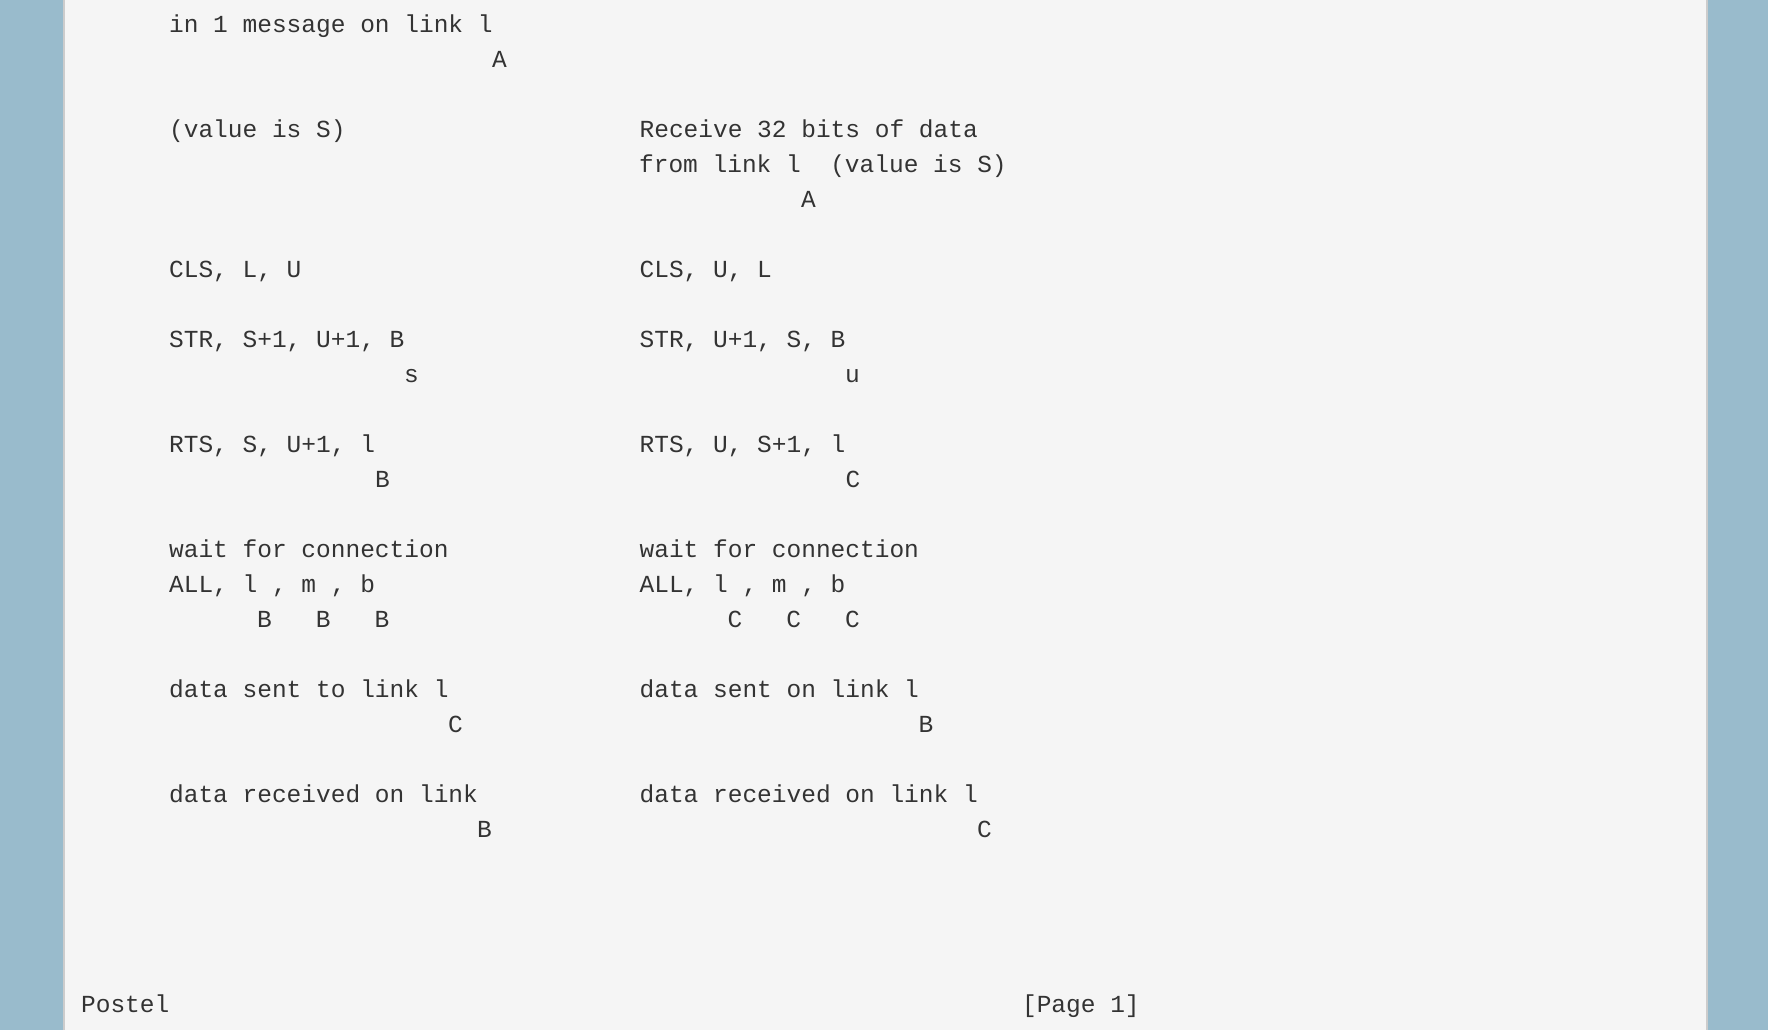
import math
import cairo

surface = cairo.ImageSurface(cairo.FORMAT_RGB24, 1768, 1030)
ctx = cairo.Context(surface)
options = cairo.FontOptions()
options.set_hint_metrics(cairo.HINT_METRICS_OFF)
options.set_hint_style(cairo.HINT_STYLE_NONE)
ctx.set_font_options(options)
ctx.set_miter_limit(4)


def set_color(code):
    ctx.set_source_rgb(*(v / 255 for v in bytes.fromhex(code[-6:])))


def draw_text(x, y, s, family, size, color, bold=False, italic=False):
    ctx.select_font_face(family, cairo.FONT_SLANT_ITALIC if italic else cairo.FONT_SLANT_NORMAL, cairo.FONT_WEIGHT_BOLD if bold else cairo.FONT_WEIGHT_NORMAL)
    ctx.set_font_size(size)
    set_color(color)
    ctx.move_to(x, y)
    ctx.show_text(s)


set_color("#99bbcc")
ctx.paint()
set_color("#f5f5f5")
ctx.rectangle(64, -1, 1643, 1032)
ctx.fill_preserve()
set_color("#cccccc")
ctx.stroke()
draw_text(169, 32, "in 1 message on link l", "Liberation Mono", 24.5, "#333333")
draw_text(492, 67, "A", "Liberation Mono", 24.5, "#333333")
draw_text(169, 137, "(value is S)                    Receive 32 bits of data", "Liberation Mono", 24.5, "#333333")
draw_text(639, 172, "from link l  (value is S)", "Liberation Mono", 24.5, "#333333")
draw_text(801, 207, "A", "Liberation Mono", 24.5, "#333333")
draw_text(169, 277, "CLS, L, U                       CLS, U, L", "Liberation Mono", 24.5, "#333333")
draw_text(169, 347, "STR, S+1, U+1, B                STR, U+1, S, B", "Liberation Mono", 24.5, "#333333")
draw_text(404, 382, "s                             u", "Liberation Mono", 24.5, "#333333")
draw_text(169, 452, "RTS, S, U+1, l                  RTS, U, S+1, l", "Liberation Mono", 24.5, "#333333")
draw_text(375, 487, "B                               C", "Liberation Mono", 24.5, "#333333")
draw_text(169, 557, "wait for connection             wait for connection", "Liberation Mono", 24.5, "#333333")
draw_text(169, 592, "ALL, l , m , b                  ALL, l , m , b", "Liberation Mono", 24.5, "#333333")
draw_text(257, 627, "B   B   B                       C   C   C", "Liberation Mono", 24.5, "#333333")
draw_text(169, 697, "data sent to link l             data sent on link l", "Liberation Mono", 24.5, "#333333")
draw_text(448, 732, "C                               B", "Liberation Mono", 24.5, "#333333")
draw_text(169, 802, "data received on link           data received on link l", "Liberation Mono", 24.5, "#333333")
draw_text(477, 837, "B                                 C", "Liberation Mono", 24.5, "#333333")
draw_text(81, 1012, "Postel                                                          [Page 1]", "Liberation Mono", 24.5, "#333333")
surface.write_to_png("output.png")
